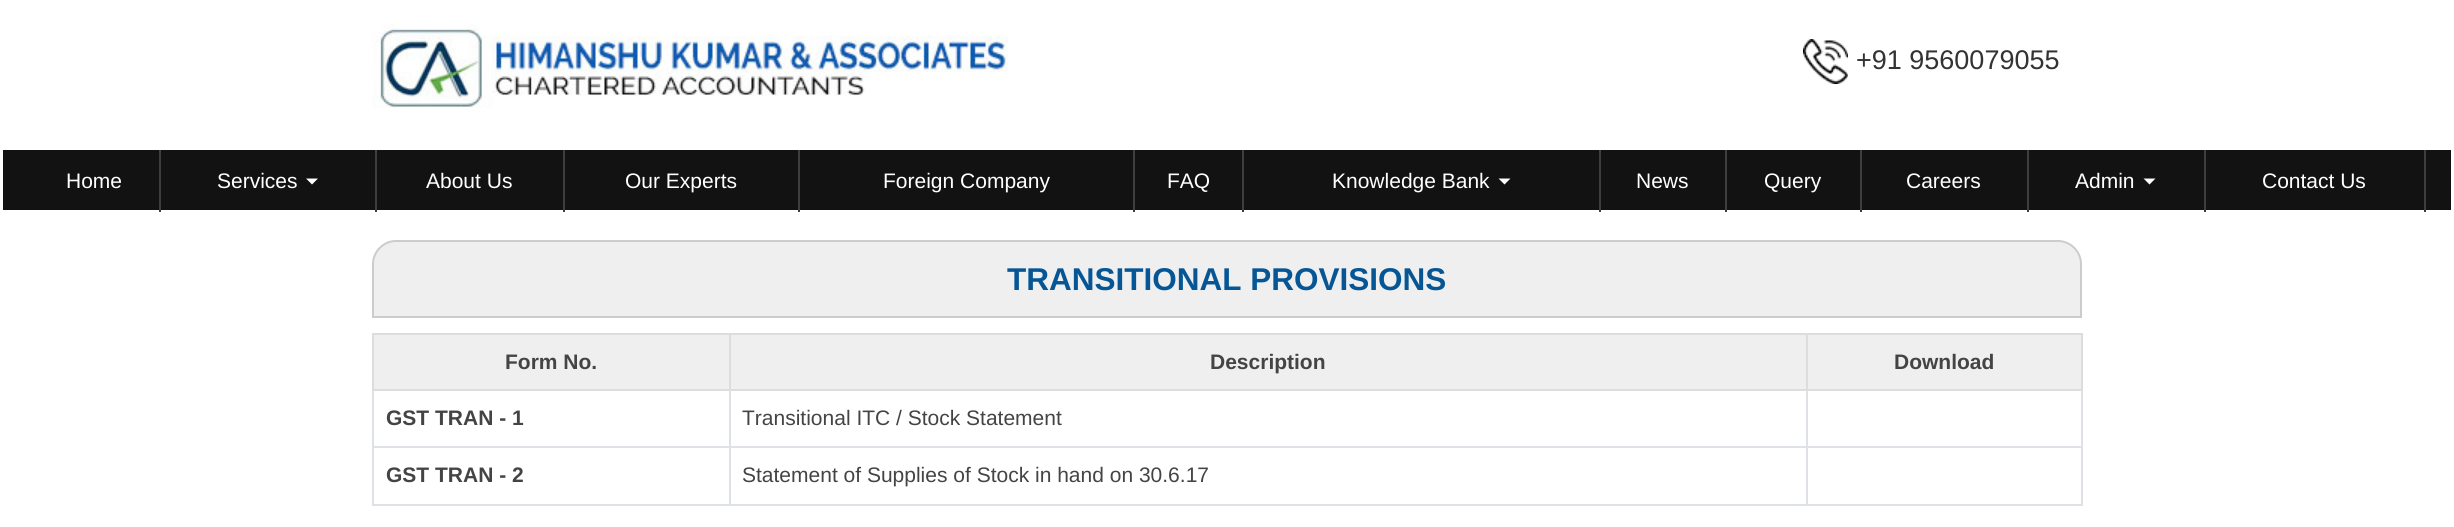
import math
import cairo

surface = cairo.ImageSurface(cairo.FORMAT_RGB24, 2454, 527)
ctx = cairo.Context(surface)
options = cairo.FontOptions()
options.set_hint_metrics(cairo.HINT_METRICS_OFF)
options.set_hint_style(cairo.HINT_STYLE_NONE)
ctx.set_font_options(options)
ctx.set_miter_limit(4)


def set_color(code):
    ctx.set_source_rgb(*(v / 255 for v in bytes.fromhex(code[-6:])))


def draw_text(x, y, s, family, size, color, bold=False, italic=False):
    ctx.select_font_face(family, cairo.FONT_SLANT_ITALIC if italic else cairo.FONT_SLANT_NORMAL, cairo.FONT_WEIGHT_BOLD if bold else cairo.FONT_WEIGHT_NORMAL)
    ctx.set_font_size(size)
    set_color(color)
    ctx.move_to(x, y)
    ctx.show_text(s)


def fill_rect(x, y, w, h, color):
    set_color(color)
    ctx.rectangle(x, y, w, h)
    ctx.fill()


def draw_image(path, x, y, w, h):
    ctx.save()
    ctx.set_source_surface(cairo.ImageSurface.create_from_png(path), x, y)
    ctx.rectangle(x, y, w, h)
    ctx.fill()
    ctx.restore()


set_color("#ffffff")
ctx.paint()
draw_image("assets/img1.png", 372, 24, 637, 84)
draw_image("assets/img2.png", 1803, 39, 45, 45)
draw_text(1856, 69, "+91 9560079055", "Liberation Sans", 27, "#333333")
fill_rect(3, 150, 2448, 60, "#121212")
fill_rect(159, 150, 2, 62, "#3f3e3e")
draw_text(66, 188, "Home", "Liberation Sans", 21, "#ffffff")
fill_rect(375, 150, 2, 62, "#3f3e3e")
draw_text(217, 188, "Services", "Liberation Sans", 21, "#ffffff")
ctx.new_path()
ctx.move_to(306, 178.5)
ctx.line_to(318, 178.5)
ctx.line_to(312, 184.5)
ctx.close_path()
ctx.fill()
fill_rect(563, 150, 2, 62, "#3f3e3e")
draw_text(426, 188, "About Us", "Liberation Sans", 21, "#ffffff")
fill_rect(798, 150, 2, 62, "#3f3e3e")
draw_text(625, 188, "Our Experts", "Liberation Sans", 21, "#ffffff")
fill_rect(1133, 150, 2, 62, "#3f3e3e")
draw_text(883, 188, "Foreign Company", "Liberation Sans", 21, "#ffffff")
fill_rect(1242, 150, 2, 62, "#3f3e3e")
draw_text(1167, 188, "FAQ", "Liberation Sans", 21, "#ffffff")
fill_rect(1599, 150, 2, 62, "#3f3e3e")
draw_text(1332, 188, "Knowledge Bank", "Liberation Sans", 21, "#ffffff")
ctx.new_path()
ctx.move_to(1498.5, 178.5)
ctx.line_to(1510.5, 178.5)
ctx.line_to(1504.5, 184.5)
ctx.close_path()
ctx.fill()
fill_rect(1725, 150, 2, 62, "#3f3e3e")
draw_text(1636, 188, "News", "Liberation Sans", 21, "#ffffff")
fill_rect(1860, 150, 2, 62, "#3f3e3e")
draw_text(1764, 188, "Query", "Liberation Sans", 21, "#ffffff")
fill_rect(2027, 150, 2, 62, "#3f3e3e")
draw_text(1906, 188, "Careers", "Liberation Sans", 21, "#ffffff")
fill_rect(2204, 150, 2, 62, "#3f3e3e")
draw_text(2075, 188, "Admin", "Liberation Sans", 21, "#ffffff")
ctx.new_path()
ctx.move_to(2143.5, 178.5)
ctx.line_to(2155.5, 178.5)
ctx.line_to(2149.5, 184.5)
ctx.close_path()
ctx.fill()
fill_rect(2424, 150, 2, 62, "#3f3e3e")
draw_text(2262, 188, "Contact Us", "Liberation Sans", 21, "#ffffff")
set_color("#efefef")
ctx.new_path()
ctx.move_to(396, 241)
ctx.line_to(2058, 241)
ctx.curve_to(2070.5, 241, 2081, 251.5, 2081, 264)
ctx.line_to(2081, 317)
ctx.line_to(373, 317)
ctx.line_to(373, 264)
ctx.curve_to(373, 251.5, 383.5, 241, 396, 241)
ctx.close_path()
ctx.fill_preserve()
set_color("#cccccc")
ctx.stroke()
draw_text(1007, 290, "TRANSITIONAL PROVISIONS", "Liberation Sans", 31.5, "#065695", bold=True)
fill_rect(2081, 390, 2, 116, "#dee2e6")
fill_rect(372, 504, 1710, 2, "#dee2e6")
fill_rect(372, 391, 2, 115, "#dee2e6")
fill_rect(374, 335, 355, 54, "#efefef")
fill_rect(1806, 333, 276, 2, "#dddddd")
fill_rect(2081, 333, 2, 57, "#dddddd")
fill_rect(1806, 446, 276, 2, "#dee2e6")
fill_rect(1806, 446, 2, 60, "#dee2e6")
fill_rect(729, 446, 1079, 2, "#dee2e6")
fill_rect(1806, 389, 2, 58, "#dee2e6")
fill_rect(1806, 389, 276, 2, "#dddddd")
fill_rect(1806, 333, 2, 57, "#dddddd")
fill_rect(729, 333, 1079, 2, "#dddddd")
fill_rect(729, 446, 2, 60, "#dee2e6")
fill_rect(372, 446, 359, 2, "#dee2e6")
fill_rect(729, 389, 2, 58, "#dee2e6")
fill_rect(729, 389, 1079, 2, "#dddddd")
fill_rect(729, 333, 2, 57, "#dddddd")
fill_rect(372, 333, 359, 2, "#dddddd")
fill_rect(372, 389, 359, 2, "#dddddd")
fill_rect(372, 333, 2, 57, "#dddddd")
draw_text(505, 369, "Form No.", "Liberation Sans", 21, "#444444", bold=True)
fill_rect(731, 335, 1075, 54, "#efefef")
draw_text(1210, 369, "Description", "Liberation Sans", 21, "#444444", bold=True)
fill_rect(1808, 335, 273, 54, "#efefef")
draw_text(1894, 369, "Download", "Liberation Sans", 21, "#444444", bold=True)
draw_text(386, 425, "GST TRAN - 1", "Liberation Sans", 21, "#444444", bold=True)
draw_text(742, 425, "Transitional ITC / Stock Statement", "Liberation Sans", 21, "#444444")
draw_text(386, 482, "GST TRAN - 2", "Liberation Sans", 21, "#444444", bold=True)
draw_text(742, 482, "Statement of Supplies of Stock in hand on 30.6.17", "Liberation Sans", 21, "#444444")
surface.write_to_png("output.png")
